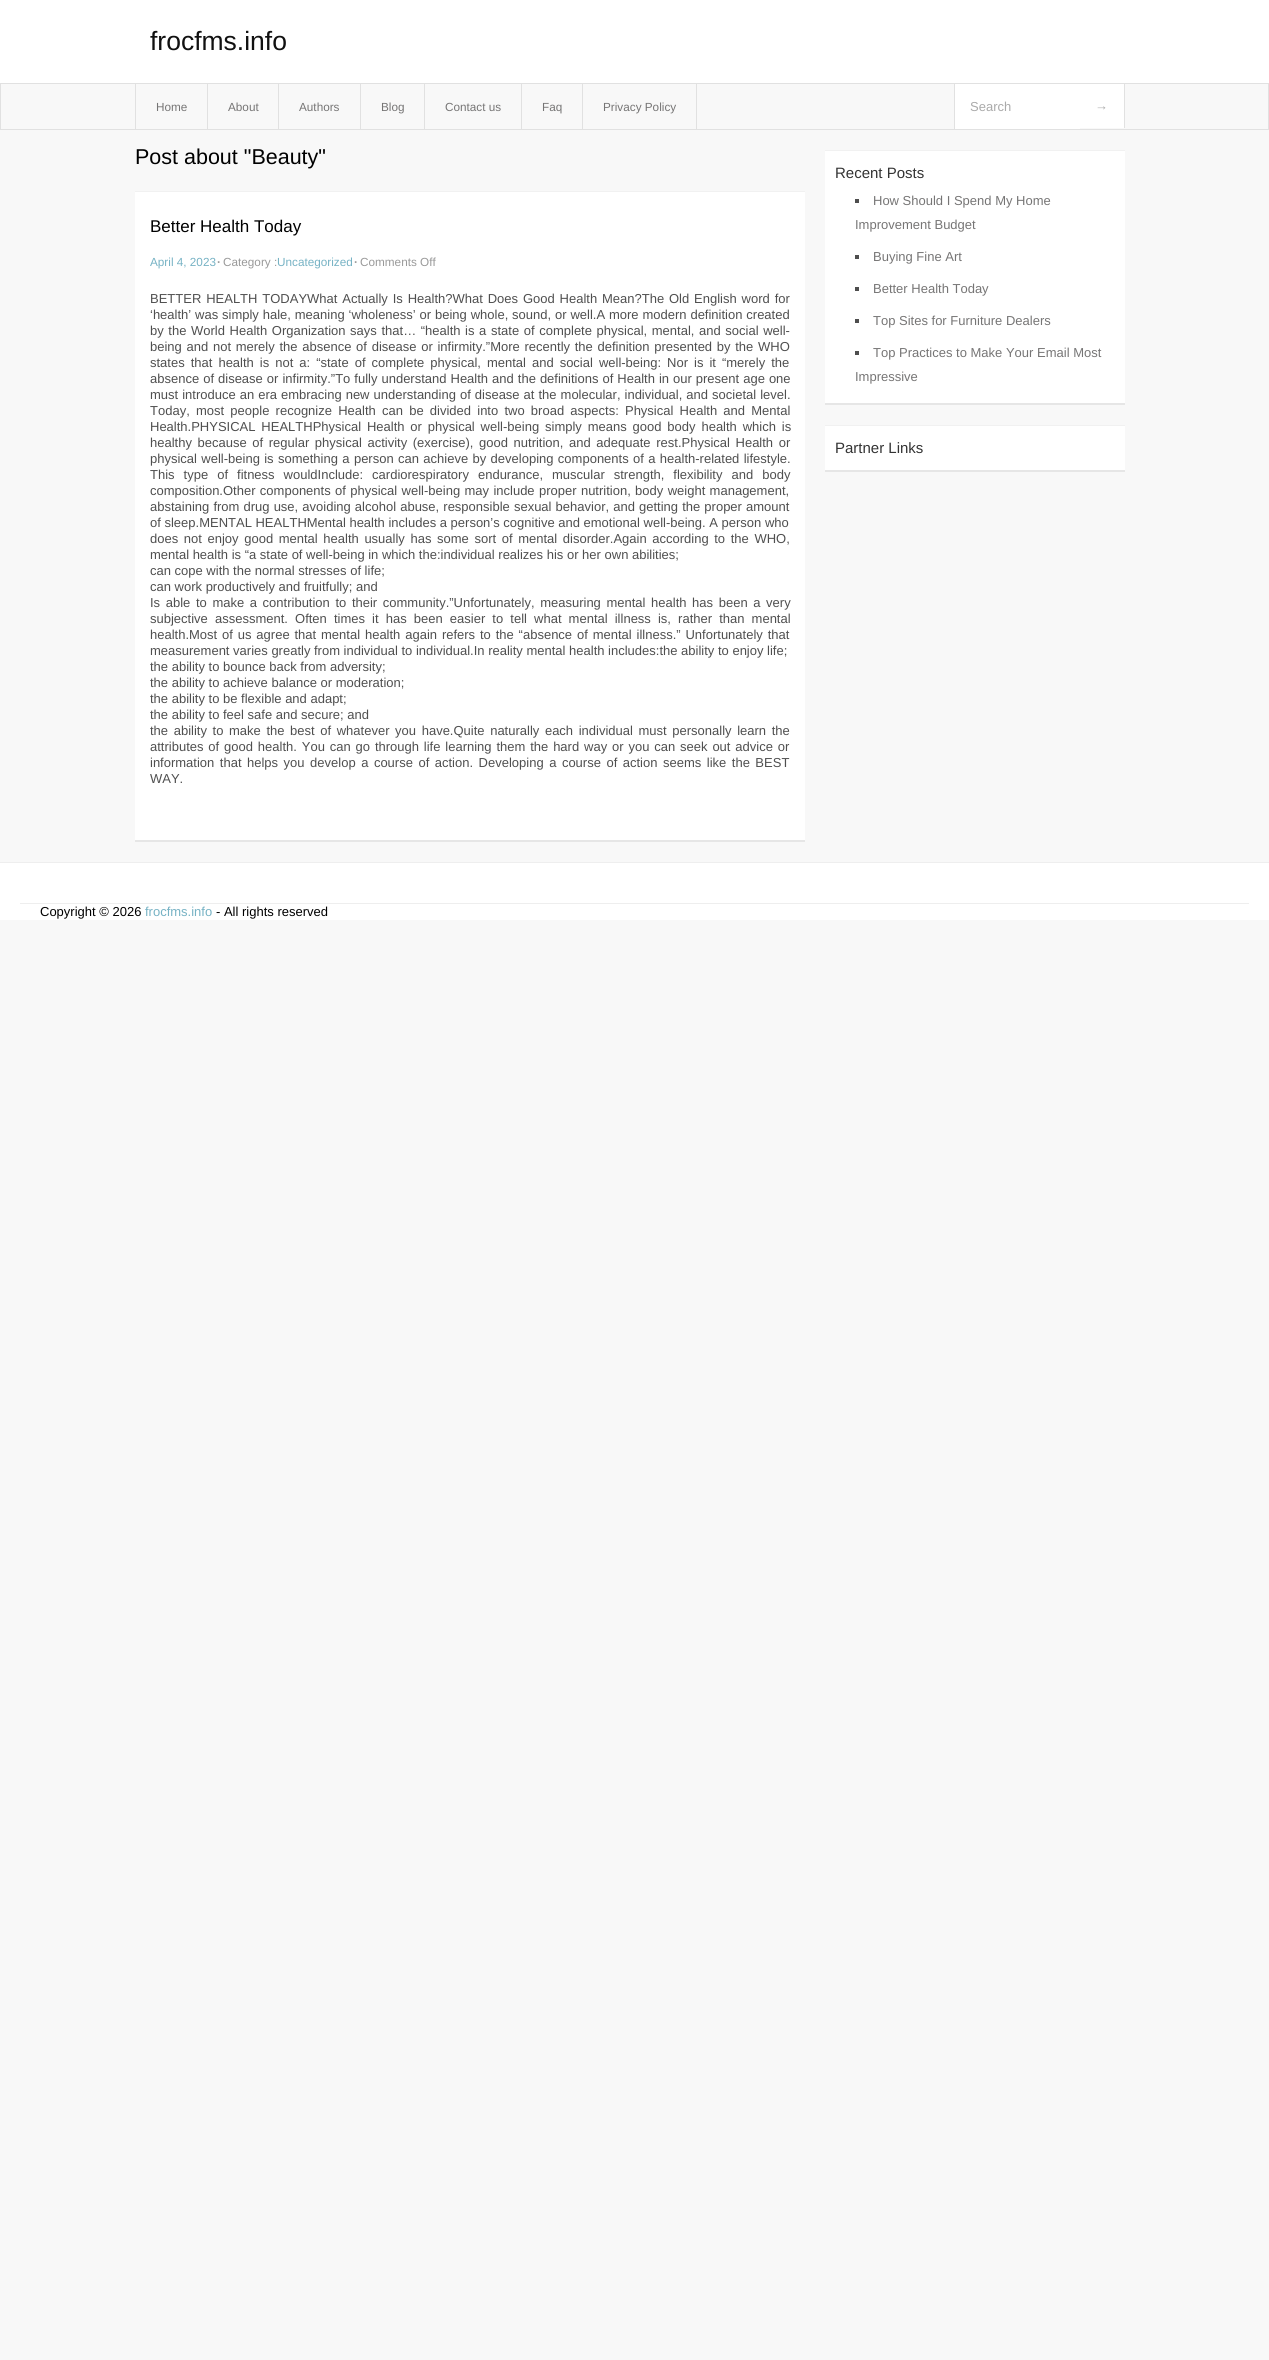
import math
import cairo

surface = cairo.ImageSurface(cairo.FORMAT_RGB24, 1269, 2360)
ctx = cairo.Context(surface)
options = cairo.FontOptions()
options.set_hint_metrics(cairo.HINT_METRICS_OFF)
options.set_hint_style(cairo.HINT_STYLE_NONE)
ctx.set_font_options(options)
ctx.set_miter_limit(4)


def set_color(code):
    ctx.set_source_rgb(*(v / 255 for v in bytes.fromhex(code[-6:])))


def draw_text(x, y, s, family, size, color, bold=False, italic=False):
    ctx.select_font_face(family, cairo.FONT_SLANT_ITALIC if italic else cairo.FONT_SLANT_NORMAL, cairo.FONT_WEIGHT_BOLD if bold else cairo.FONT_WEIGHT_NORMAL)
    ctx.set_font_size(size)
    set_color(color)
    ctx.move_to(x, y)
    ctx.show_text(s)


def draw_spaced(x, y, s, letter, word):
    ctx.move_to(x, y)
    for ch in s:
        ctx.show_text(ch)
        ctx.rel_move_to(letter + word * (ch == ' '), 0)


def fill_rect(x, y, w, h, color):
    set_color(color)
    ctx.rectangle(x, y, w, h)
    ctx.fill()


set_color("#f8f8f8")
ctx.paint()
fill_rect(0, 0, 1269, 83, "#ffffff")
draw_text(150, 50, "frocfms.info", "Liberation Sans", 26.5, "#111111")
ctx.rectangle(0.5, 83.5, 1268, 46)
set_color("#e1e1e1")
ctx.set_line_width(1)
ctx.stroke()
fill_rect(135, 84, 1, 46, "#e1e1e1")
fill_rect(207, 84, 1, 46, "#e1e1e1")
draw_text(156, 111, "Home", "Liberation Sans", 11.75, "#767575")
fill_rect(278, 84, 1, 46, "#e1e1e1")
draw_text(228, 111, "About", "Liberation Sans", 11.75, "#767575")
fill_rect(360, 84, 1, 46, "#e1e1e1")
draw_text(299, 111, "Authors", "Liberation Sans", 11.75, "#767575")
fill_rect(424, 84, 1, 46, "#e1e1e1")
draw_text(381, 111, "Blog", "Liberation Sans", 11.75, "#767575")
fill_rect(521, 84, 1, 46, "#e1e1e1")
draw_text(445, 111, "Contact us", "Liberation Sans", 11.75, "#767575")
fill_rect(582, 84, 1, 46, "#e1e1e1")
draw_text(542, 111, "Faq", "Liberation Sans", 11.75, "#767575")
fill_rect(696, 84, 1, 46, "#e1e1e1")
draw_text(603, 111, "Privacy Policy", "Liberation Sans", 11.75, "#767575")
fill_rect(955, 84, 125, 45, "#ffffff")
fill_rect(954, 84, 1, 45, "#e1e1e1")
draw_text(970, 111, "Search", "Liberation Sans", 13, "#aaaaaa")
fill_rect(1080, 84, 44, 44, "#ffffff")
fill_rect(1124, 84, 1, 44, "#e1e1e1")
draw_text(1095, 110, "→", "Liberation Sans", 13, "#aaaaaa")
draw_text(135, 164, "Post about \"Beauty\"", "Liberation Sans", 21.5, "#000000")
fill_rect(135, 192, 670, 648, "#ffffff")
fill_rect(135, 191, 670, 1, "#f1f1f1")
fill_rect(135, 840, 670, 2, "#e6e6e6")
draw_text(150, 232, "Better Health Today", "Liberation Sans", 17, "#000000")
draw_text(150, 266, "April 4, 2023", "Liberation Sans", 11.75, "#76b2c4")
draw_text(217, 266, "·", "Liberation Sans", 11.75, "#999999", bold=True)
draw_text(223, 266, "Category :", "Liberation Sans", 11.75, "#999999")
draw_text(277, 266, "Uncategorized", "Liberation Sans", 11.75, "#76b2c4")
draw_text(354, 266, "·", "Liberation Sans", 11.75, "#999999", bold=True)
draw_text(360, 266, "Comments Off", "Liberation Sans", 11.75, "#999999")
ctx.set_font_size(13)
set_color("#4f4f4f")
draw_spaced(150, 303, "BETTER HEALTH TODAYWhat Actually Is Health?What Does Good Health Mean?The Old English word for", 0, 1.25)
draw_spaced(150, 319, "‘health’ was simply hale, meaning ‘wholeness’ or being whole, sound, or well.A more modern definition created", 0, 0.25)
draw_spaced(150, 335, "by the World Health Organization says that… “health is a state of complete physical, mental, and social well-", 0, 1)
draw_spaced(150, 351, "being and not merely the absence of disease or infirmity.”More recently the definition presented by the WHO", 0, 1.1)
draw_spaced(150, 367, "states that health is not a: “state of complete physical, mental and social well-being: Nor is it “merely the", 0, 2.4)
draw_spaced(150, 383, "absence of disease or infirmity.”To fully understand Health and the definitions of Health in our present age one", 0, 0.4)
draw_spaced(150, 399, "must introduce an era embracing new understanding of disease at the molecular, individual, and societal level.", 0, 0.4)
draw_spaced(150, 415, "Today, most people recognize Health can be divided into two broad aspects: Physical Health and Mental", 0, 2.6)
draw_spaced(150, 431, "Health.PHYSICAL HEALTHPhysical Health or physical well-being simply means good body health which is", 0, 2.25)
draw_spaced(150, 447, "healthy because of regular physical activity (exercise), good nutrition, and adequate rest.Physical Health or", 0, 2)
draw_spaced(150, 463, "physical well-being is something a person can achieve by developing components of a health-related lifestyle.", 0, 0.75)
draw_spaced(150, 479, "This type of fitness wouldInclude: cardiorespiratory endurance, muscular strength, flexibility and body", 0, 5.4)
draw_spaced(150, 495, "composition.Other components of physical well-being may include proper nutrition, body weight management,", 0, 0.75)
draw_spaced(150, 511, "abstaining from drug use, avoiding alcohol abuse, responsible sexual behavior, and getting the proper amount", 0, 0.5)
draw_text(150, 527, "of sleep.MENTAL HEALTHMental health includes a person’s cognitive and emotional well-being. A person who", "Liberation Sans", 13, "#4f4f4f")
draw_spaced(150, 543, "does not enjoy good mental health usually has some sort of mental disorder.Again according to the WHO,", 0, 2)
draw_text(150, 559, "mental health is “a state of well-being in which the:individual realizes his or her own abilities;", "Liberation Sans", 13, "#4f4f4f")
draw_text(150, 575, "can cope with the normal stresses of life;", "Liberation Sans", 13, "#4f4f4f")
draw_text(150, 591, "can work productively and fruitfully; and", "Liberation Sans", 13, "#4f4f4f")
draw_spaced(150, 607, "Is able to make a contribution to their community.”Unfortunately, measuring mental health has been a very", 0, 2)
draw_spaced(150, 623, "subjective assessment. Often times it has been easier to tell what mental illness is, rather than mental", 0, 3.5)
draw_spaced(150, 639, "health.Most of us agree that mental health again refers to the “absence of mental illness.” Unfortunately that", 0, 1.25)
draw_text(150, 655, "measurement varies greatly from individual to individual.In reality mental health includes:the ability to enjoy life;", "Liberation Sans", 13, "#4f4f4f")
draw_text(150, 671, "the ability to bounce back from adversity;", "Liberation Sans", 13, "#4f4f4f")
draw_text(150, 687, "the ability to achieve balance or moderation;", "Liberation Sans", 13, "#4f4f4f")
draw_text(150, 703, "the ability to be flexible and adapt;", "Liberation Sans", 13, "#4f4f4f")
draw_text(150, 719, "the ability to feel safe and secure; and", "Liberation Sans", 13, "#4f4f4f")
draw_spaced(150, 735, "the ability to make the best of whatever you have.Quite naturally each individual must personally learn the", 0, 2)
draw_spaced(150, 751, "attributes of good health. You can go through life learning them the hard way or you can seek out advice or", 0, 1.25)
draw_spaced(150, 767, "information that helps you develop a course of action. Developing a course of action seems like the BEST", 0, 1.9)
draw_text(150, 783, "WAY.", "Liberation Sans", 13, "#4f4f4f")
fill_rect(825, 151, 300, 252, "#ffffff")
fill_rect(825, 150, 300, 1, "#f1f1f1")
fill_rect(825, 403, 300, 2, "#e6e6e6")
draw_text(835, 178, "Recent Posts", "Liberation Sans", 15, "#333333")
fill_rect(855, 199, 4, 4, "#4e4e4e")
draw_text(873, 205, "How Should I Spend My Home", "Liberation Sans", 13, "#767575")
draw_text(855, 229, "Improvement Budget", "Liberation Sans", 13, "#767575")
fill_rect(855, 255, 4, 4, "#4e4e4e")
draw_text(873, 261, "Buying Fine Art", "Liberation Sans", 13, "#767575")
fill_rect(855, 287, 4, 4, "#4e4e4e")
draw_text(873, 293, "Better Health Today", "Liberation Sans", 13, "#767575")
fill_rect(855, 319, 4, 4, "#4e4e4e")
draw_text(873, 325, "Top Sites for Furniture Dealers", "Liberation Sans", 13, "#767575")
fill_rect(855, 351, 4, 4, "#4e4e4e")
draw_text(873, 357, "Top Practices to Make Your Email Most", "Liberation Sans", 13, "#767575")
draw_text(855, 381, "Impressive", "Liberation Sans", 13, "#767575")
fill_rect(825, 426, 300, 44, "#ffffff")
fill_rect(825, 425, 300, 1, "#f1f1f1")
fill_rect(825, 470, 300, 2, "#e6e6e6")
draw_text(835, 453, "Partner Links", "Liberation Sans", 15, "#333333")
fill_rect(0, 863, 1269, 57, "#ffffff")
fill_rect(0, 862, 1269, 1, "#eeeeee")
fill_rect(20, 903, 1229, 1, "#eeeeee")
draw_text(40, 916, "Copyright © 2026", "Liberation Sans", 13, "#000000")
draw_text(145, 916, "frocfms.info", "Liberation Sans", 13, "#76b2c4")
draw_text(216, 916, "- All rights reserved", "Liberation Sans", 13, "#000000")
surface.write_to_png("output.png")
